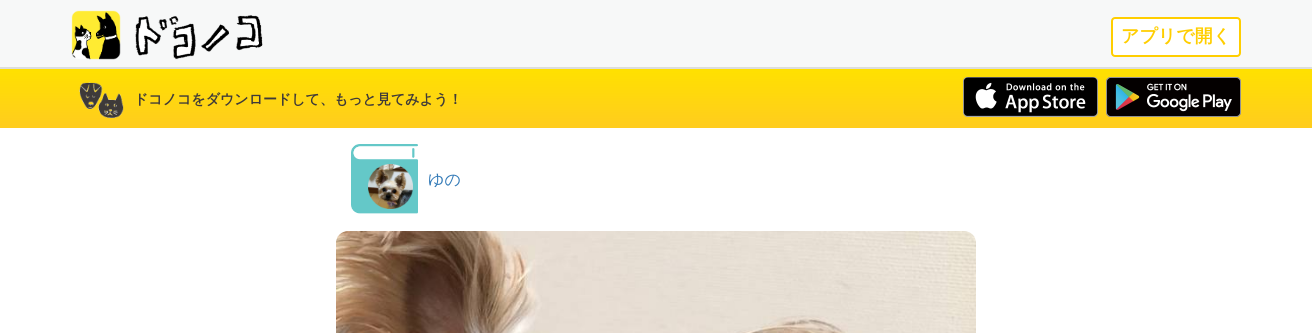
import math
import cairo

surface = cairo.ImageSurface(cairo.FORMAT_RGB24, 1312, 333)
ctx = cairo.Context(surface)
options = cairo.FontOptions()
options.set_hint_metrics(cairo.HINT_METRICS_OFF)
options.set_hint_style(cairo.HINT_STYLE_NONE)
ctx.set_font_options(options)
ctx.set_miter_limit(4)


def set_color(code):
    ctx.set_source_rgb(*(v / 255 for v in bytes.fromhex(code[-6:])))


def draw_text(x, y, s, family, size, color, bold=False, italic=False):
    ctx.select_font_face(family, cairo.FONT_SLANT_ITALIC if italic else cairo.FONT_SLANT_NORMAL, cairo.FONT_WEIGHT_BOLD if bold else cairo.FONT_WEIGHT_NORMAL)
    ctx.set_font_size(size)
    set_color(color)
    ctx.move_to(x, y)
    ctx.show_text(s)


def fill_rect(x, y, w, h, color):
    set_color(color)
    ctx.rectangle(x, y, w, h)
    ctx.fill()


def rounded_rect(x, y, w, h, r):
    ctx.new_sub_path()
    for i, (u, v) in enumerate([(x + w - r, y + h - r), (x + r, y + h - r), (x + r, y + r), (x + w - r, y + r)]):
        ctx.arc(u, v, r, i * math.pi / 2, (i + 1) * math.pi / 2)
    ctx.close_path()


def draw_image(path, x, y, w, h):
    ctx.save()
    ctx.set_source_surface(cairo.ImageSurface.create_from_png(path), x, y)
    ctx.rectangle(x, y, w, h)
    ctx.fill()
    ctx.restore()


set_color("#ffffff")
ctx.paint()
fill_rect(0, 0, 1312, 67, "#f7f8f8")
fill_rect(0, 67, 1312, 2, "#dcdddd")
draw_image("assets/img1.png", 71, 10, 50, 50)
draw_image("assets/img2.png", 135, 15, 128, 45)
set_color("#ffffff")
rounded_rect(1112, 18, 128, 38, 3)
ctx.fill_preserve()
set_color("#ffce00")
ctx.stroke()
draw_text(1121, 42, "アプリで開く", "WenQuanYi Zen Hei", 18, "#ffce00", bold=True)
gradient = cairo.LinearGradient(0, 69, 0, 128)
gradient.add_color_stop_rgba(0, 1, 0.882, 0, 1)
gradient.add_color_stop_rgba(1, 1, 0.8, 0.118, 1)
ctx.set_source(gradient)
ctx.rectangle(0, 69, 1312, 59)
ctx.fill()
draw_image("assets/img3.png", 79, 82, 45, 36)
draw_text(134, 104, "ドコノコをダウンロードして、もっと見てみよう！", "WenQuanYi Zen Hei", 14, "#3e3a39", bold=True)
draw_image("assets/img4.png", 963, 77, 135, 40)
draw_image("assets/img5.png", 1106, 77, 135, 40)
draw_image("assets/img6.png", 351, 144, 67, 70)
draw_image("assets/img7.png", 368, 164, 45, 45)
draw_text(428, 185, "ゆの", "WenQuanYi Zen Hei Medium", 16, "#337ab7")
draw_image("assets/img8.png", 336, 231, 640, 102)
surface.write_to_png("output.png")
